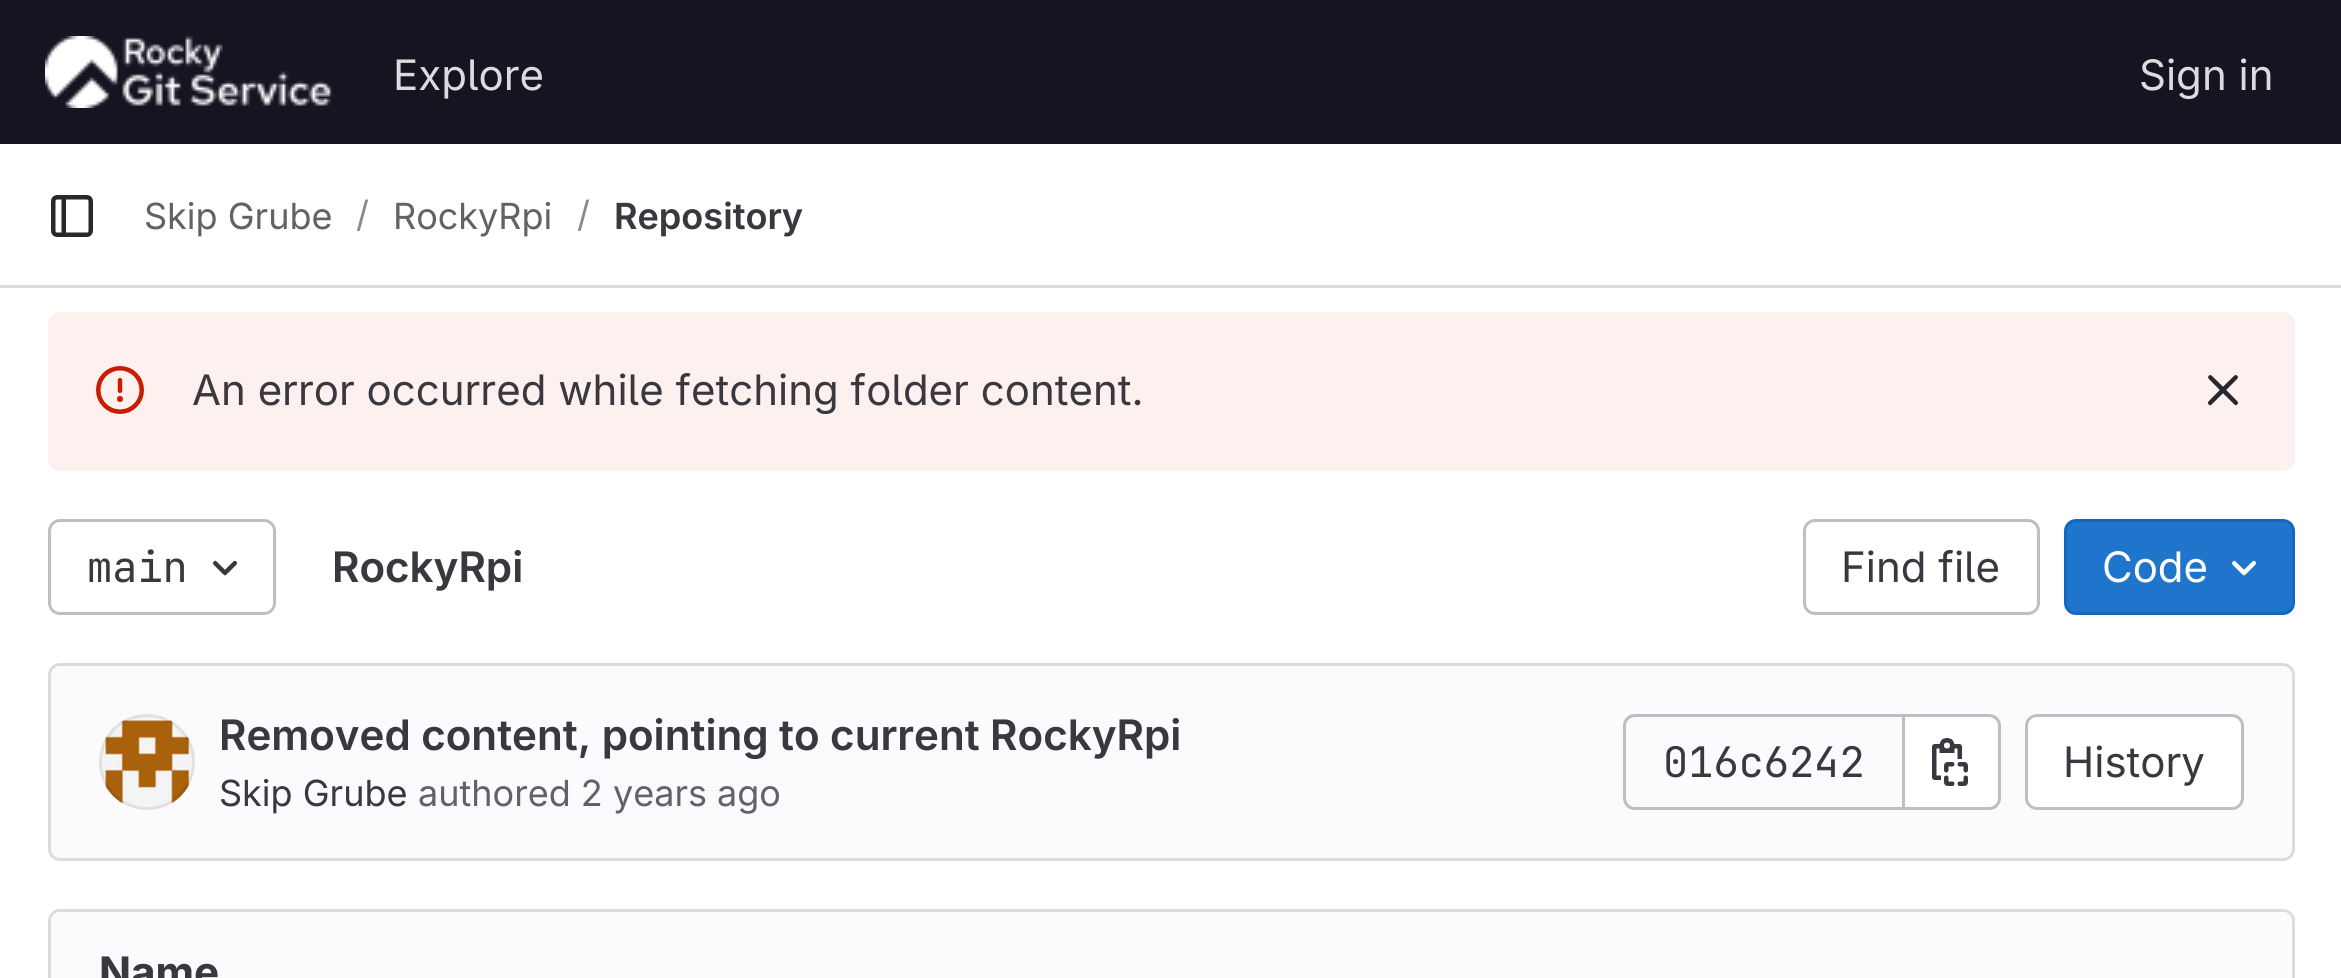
import math
import cairo

surface = cairo.ImageSurface(cairo.FORMAT_RGB24, 2341, 978)
ctx = cairo.Context(surface)
options = cairo.FontOptions()
options.set_hint_metrics(cairo.HINT_METRICS_OFF)
options.set_hint_style(cairo.HINT_STYLE_NONE)
ctx.set_font_options(options)
ctx.set_miter_limit(4)


def set_color(code):
    ctx.set_source_rgb(*(v / 255 for v in bytes.fromhex(code[-6:])))


def draw_text(x, y, s, family, size, color, bold=False, italic=False):
    ctx.select_font_face(family, cairo.FONT_SLANT_ITALIC if italic else cairo.FONT_SLANT_NORMAL, cairo.FONT_WEIGHT_BOLD if bold else cairo.FONT_WEIGHT_NORMAL)
    ctx.set_font_size(size)
    set_color(color)
    ctx.move_to(x, y)
    ctx.show_text(s)


def fill_rect(x, y, w, h, color):
    set_color(color)
    ctx.rectangle(x, y, w, h)
    ctx.fill()


def rounded_rect(x, y, w, h, r):
    ctx.new_sub_path()
    for i, (u, v) in enumerate([(x + w - r, y + h - r), (x + r, y + h - r), (x + r, y + r), (x + w - r, y + r)]):
        ctx.arc(u, v, r, i * math.pi / 2, (i + 1) * math.pi / 2)
    ctx.close_path()


def draw_image(path, x, y, w, h):
    ctx.save()
    ctx.set_source_surface(cairo.ImageSurface.create_from_png(path), x, y)
    ctx.rectangle(x, y, w, h)
    ctx.fill()
    ctx.restore()


set_color("#ffffff")
ctx.paint()
fill_rect(0, 0, 2341, 144, "#171321")
draw_image("assets/img1.png", 45, 36, 288, 72)
draw_text(393, 90, "Explore", "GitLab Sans", 42, "#dcdcde")
draw_text(2139, 90, "Sign in", "GitLab Sans", 42, "#dcdcde")
fill_rect(0, 285, 2341, 3, "#dcdcde")
draw_image("assets/img2.png", 51, 195, 42, 42)
draw_text(144, 229, "Skip Grube", "GitLab Sans", 36, "#626168")
draw_text(356, 227, "/", "GitLab Sans", 36, "#89888d")
draw_text(393, 229, "RockyRpi", "GitLab Sans", 36, "#626168")
draw_text(577, 227, "/", "GitLab Sans", 36, "#89888d")
draw_text(614, 229, "Repository", "GitLab Sans SemiBold", 36, "#3a383f")
set_color("#fcf1ef")
rounded_rect(48, 312, 2247, 159, 12)
ctx.fill()
draw_image("assets/img3.png", 96, 366, 48, 48)
draw_text(192, 405, "An error occurred while fetching folder content.", "GitLab Sans", 42, "#3a383f")
draw_image("assets/img4.png", 2207, 375, 32, 31)
rounded_rect(49.5, 520.5, 225, 93, 10.5)
set_color("#bfbfc3")
ctx.set_line_width(3)
ctx.stroke()
draw_text(87, 582, "main", "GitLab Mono", 42, "#3a383f")
draw_image("assets/img5.png", 212, 560, 26, 16)
draw_text(332, 582, "RockyRpi", "GitLab Sans SemiBold", 42, "#3a383f")
rounded_rect(1804.5, 520.5, 234, 93, 10.5)
set_color("#bfbfc3")
ctx.stroke()
draw_text(1841, 582, "Find file", "GitLab Sans", 42, "#3a383f")
set_color("#1f75cb")
rounded_rect(2065.5, 520.5, 228, 93, 10.5)
ctx.fill_preserve()
set_color("#1068bf")
ctx.stroke()
draw_text(2102, 582, "Code", "GitLab Sans", 42, "#ffffff")
draw_image("assets/img6.png", 2231, 560, 26, 16)
set_color("#fbfafd")
rounded_rect(49.5, 664.5, 2244, 195, 10.5)
ctx.fill_preserve()
set_color("#dcdcde")
ctx.stroke()
draw_image("assets/img7.png", 99, 714, 96, 96)
ctx.arc(147, 762, 46.5, 0, 2 * math.pi)
ctx.set_source_rgba(0.02, 0.02, 0.024, 0.08)
ctx.stroke()
draw_text(219, 750, "Removed content, pointing to current RockyRpi", "GitLab Sans SemiBold", 42, "#3a383f")
draw_text(219, 806, "Skip Grube", "GitLab Sans", 36, "#3a383f")
draw_text(418, 806, "authored 2 years ago", "GitLab Sans", 36, "#626168")
set_color("#bfbfc3")
ctx.set_fill_rule(cairo.FILL_RULE_EVEN_ODD)
ctx.new_path()
ctx.move_to(1635, 714)
ctx.line_to(1902, 714)
ctx.line_to(1902, 810)
ctx.line_to(1635, 810)
ctx.curve_to(1628, 810, 1623, 805, 1623, 798)
ctx.line_to(1623, 726)
ctx.curve_to(1623, 719, 1628, 714, 1635, 714)
ctx.close_path()
ctx.move_to(1635, 717)
ctx.line_to(1902, 717)
ctx.line_to(1902, 807)
ctx.line_to(1635, 807)
ctx.curve_to(1630, 807, 1626, 803, 1626, 798)
ctx.line_to(1626, 726)
ctx.curve_to(1626, 721, 1630, 717, 1635, 717)
ctx.close_path()
ctx.fill()
draw_text(1663, 777, "016c6242", "GitLab Mono", 42, "#3a383f")
set_color("#ffffff")
ctx.new_path()
ctx.move_to(1905, 717)
ctx.line_to(1989, 717)
ctx.curve_to(1994, 717, 1998, 721, 1998, 726)
ctx.line_to(1998, 798)
ctx.curve_to(1998, 803, 1994, 807, 1989, 807)
ctx.line_to(1905, 807)
ctx.close_path()
ctx.fill()
set_color("#bfbfc3")
ctx.new_path()
ctx.move_to(1905, 714)
ctx.line_to(1989, 714)
ctx.curve_to(1996, 714, 2001, 719, 2001, 726)
ctx.line_to(2001, 798)
ctx.curve_to(2001, 805, 1996, 810, 1989, 810)
ctx.line_to(1905, 810)
ctx.close_path()
ctx.move_to(1905, 717)
ctx.line_to(1989, 717)
ctx.curve_to(1994, 717, 1998, 721, 1998, 726)
ctx.line_to(1998, 798)
ctx.curve_to(1998, 803, 1994, 807, 1989, 807)
ctx.line_to(1905, 807)
ctx.close_path()
ctx.fill()
fill_rect(1902, 714, 3, 96, "#bfbfc3")
draw_image("assets/img8.png", 1932, 738, 36, 48)
set_color("#ffffff")
rounded_rect(2026.5, 715.5, 216, 93, 10.5)
ctx.fill_preserve()
set_color("#bfbfc3")
ctx.stroke()
draw_text(2063, 777, "History", "GitLab Sans", 42, "#3a383f")
rounded_rect(49.5, 910.5, 2244, 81, 10.5)
set_color("#dcdcde")
ctx.stroke()
set_color("#fbfafd")
ctx.new_path()
ctx.move_to(60, 912)
ctx.line_to(798, 912)
ctx.line_to(798, 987)
ctx.line_to(51, 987)
ctx.line_to(51, 921)
ctx.curve_to(51, 916, 55, 912, 60, 912)
ctx.close_path()
ctx.fill()
draw_text(99, 987, "Name", "GitLab Sans", 42, "#3a383f", bold=True)
fill_rect(798, 912, 747, 66, "#fbfafd")
ctx.new_path()
ctx.move_to(1545, 912)
ctx.line_to(2283, 912)
ctx.curve_to(2288, 912, 2292, 916, 2292, 921)
ctx.line_to(2292, 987)
ctx.line_to(1545, 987)
ctx.close_path()
ctx.fill()
surface.write_to_png("output.png")
